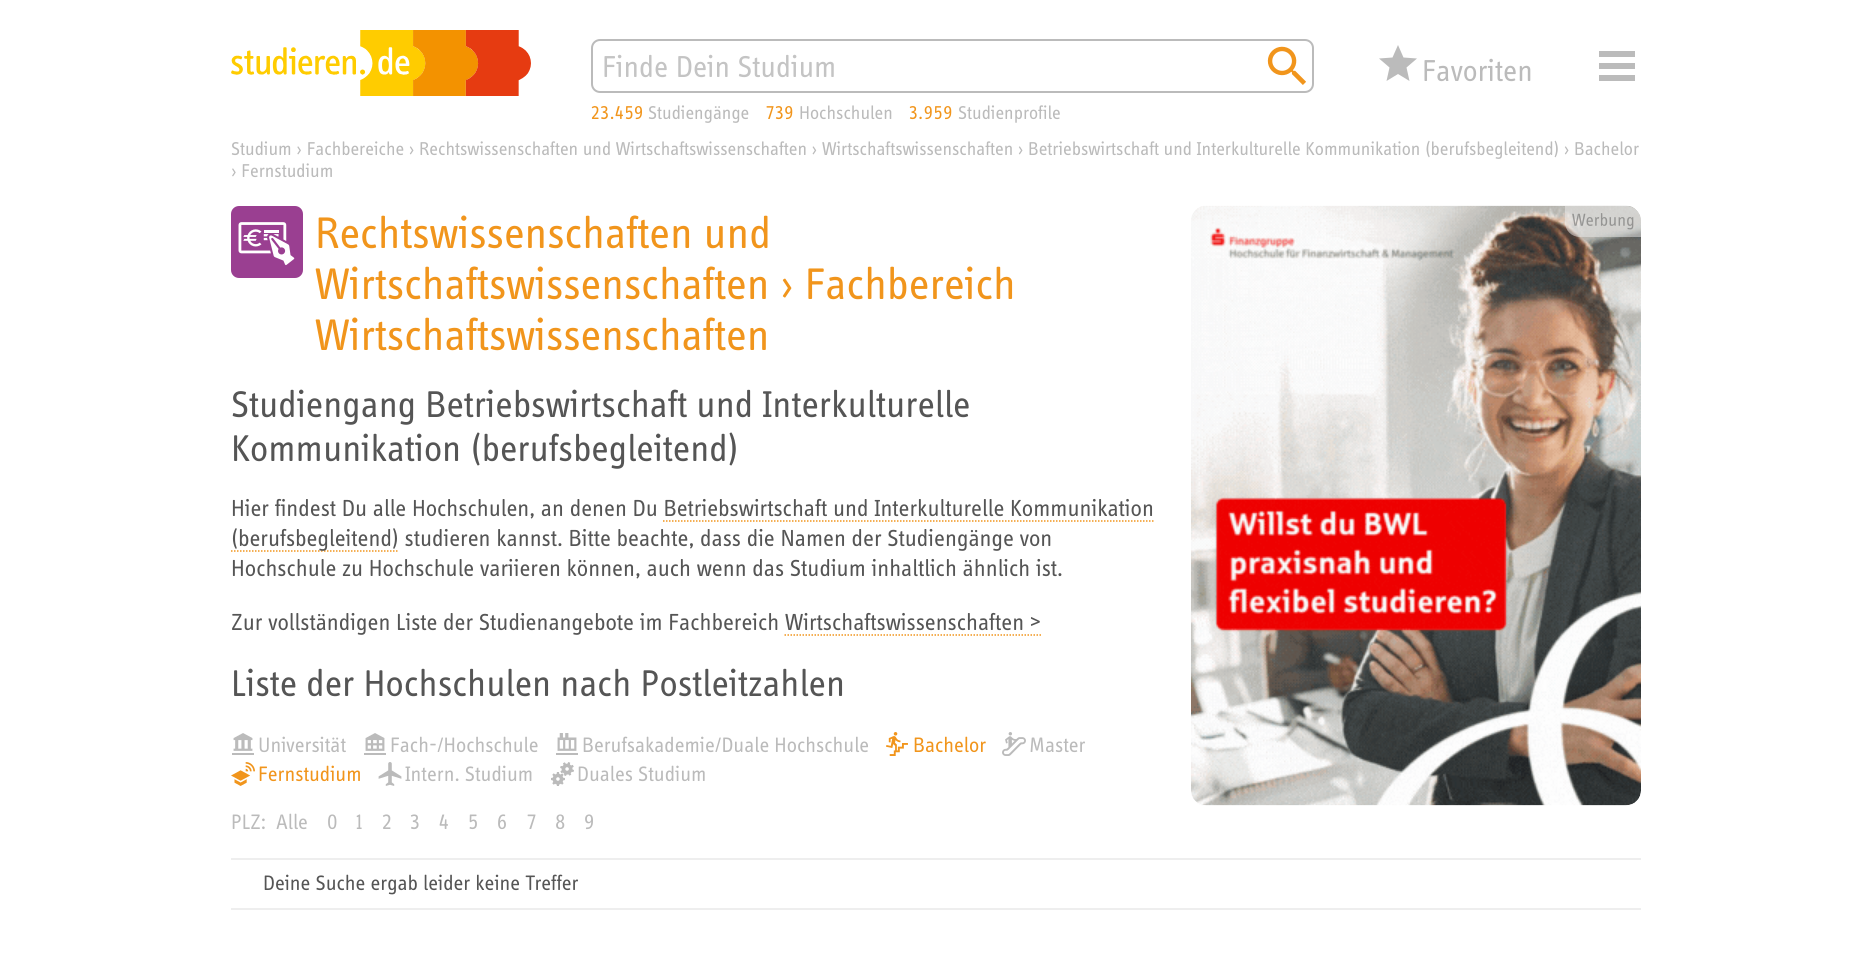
import math
import cairo

surface = cairo.ImageSurface(cairo.FORMAT_RGB24, 1871, 974)
ctx = cairo.Context(surface)
options = cairo.FontOptions()
options.set_hint_metrics(cairo.HINT_METRICS_OFF)
options.set_hint_style(cairo.HINT_STYLE_NONE)
ctx.set_font_options(options)
ctx.set_miter_limit(4)


def set_color(code):
    ctx.set_source_rgb(*(v / 255 for v in bytes.fromhex(code[-6:])))


def draw_text(x, y, s, family, size, color, bold=False, italic=False):
    ctx.select_font_face(family, cairo.FONT_SLANT_ITALIC if italic else cairo.FONT_SLANT_NORMAL, cairo.FONT_WEIGHT_BOLD if bold else cairo.FONT_WEIGHT_NORMAL)
    ctx.set_font_size(size)
    set_color(color)
    ctx.move_to(x, y)
    ctx.show_text(s)


def draw_spaced(x, y, s, letter, word):
    ctx.move_to(x, y)
    for ch in s:
        ctx.show_text(ch)
        ctx.rel_move_to(letter + word * (ch == ' '), 0)


def fill_rect(x, y, w, h, color):
    set_color(color)
    ctx.rectangle(x, y, w, h)
    ctx.fill()


def rounded_rect(x, y, w, h, r):
    ctx.new_sub_path()
    for i, (u, v) in enumerate([(x + w - r, y + h - r), (x + r, y + h - r), (x + r, y + r), (x + w - r, y + r)]):
        ctx.arc(u, v, r, i * math.pi / 2, (i + 1) * math.pi / 2)
    ctx.close_path()


def draw_shadow(x, y, w, h, r, blur, alpha):
    ctx.push_group_with_content(cairo.CONTENT_ALPHA)
    ctx.set_operator(cairo.OPERATOR_SOURCE)
    for i in range(15, -16, -2):
        e = blur * i / 6
        if min(w, h) + 2 * e > 0:
            ctx.set_source_rgba(0, 0, 0, alpha * math.erfc((i - 1) / 8.5) / 2)
            rounded_rect(x - e, y - e, w + 2 * e, h + 2 * e, max(0, min(r + e + blur * .6, min(w, h) / 2 + e)))
            ctx.fill()
    ctx.mask(ctx.pop_group())


def draw_image(path, x, y, w, h):
    ctx.save()
    ctx.set_source_surface(cairo.ImageSurface.create_from_png(path), x, y)
    ctx.rectangle(x, y, w, h)
    ctx.fill()
    ctx.restore()


set_color("#ffffff")
ctx.paint()
draw_image("assets/img1.png", 231, 30, 300, 66)
rounded_rect(592, 40, 721, 52, 8)
set_color("#bbbbbb")
ctx.stroke()
draw_text(602, 77, "Finde Dein Studium", "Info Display", 31.25, "#c4c4c4")
draw_image("assets/img2.png", 1267, 46, 39, 39)
set_color("#bbbbbb")
ctx.new_path()
ctx.move_to(1398, 74)
ctx.line_to(1409.5, 81)
ctx.line_to(1406.5, 67.5)
ctx.line_to(1417, 58.5)
ctx.line_to(1403.5, 57.5)
ctx.line_to(1398, 45)
ctx.line_to(1392.5, 57.5)
ctx.line_to(1379, 58.5)
ctx.line_to(1389.5, 67.5)
ctx.line_to(1386.5, 81)
ctx.close_path()
ctx.fill()
draw_text(1422, 81, "Favoriten", "Info Display", 31.25, "#bbbbbb")
fill_rect(1599, 51, 36, 6, "#bbbbbb")
fill_rect(1599, 75, 36, 6, "#bbbbbb")
fill_rect(1599, 63, 36, 6, "#bbbbbb")
ctx.set_font_size(19.2)
set_color("#f1951c")
draw_spaced(591, 119, "23.459", 0.75, 0)
draw_text(648, 119, "Studiengänge", "Info Display", 19.2, "#bbbbbb")
set_color("#f1951c")
draw_spaced(766, 119, "739", 0.75, 0)
draw_text(799, 119, "Hochschulen", "Info Display", 19.2, "#bbbbbb")
set_color("#f1951c")
draw_spaced(909, 119, "3.959", 0.75, 0)
draw_text(958, 119, "Studienprofile", "Info Display", 19.2, "#bbbbbb")
draw_text(231, 155, "Studium › Fachbereiche › Rechtswissenschaften und Wirtschaftswissenschaften › Wirtschaftswissenschaften › Betriebswirtschaft und Interkulturelle Kommunikation (berufsbegleitend) › Bachelor", "Info Display", 19.2, "#bbbbbb")
draw_text(231, 177, "› Fernstudium", "Info Display", 19.2, "#bbbbbb")
set_color("#9a3f91")
rounded_rect(231, 206, 72, 72, 8)
ctx.fill()
draw_image("assets/img3.png", 238, 222, 57, 44)
draw_text(315, 248, "Rechtswissenschaften und", "Info Display", 45.6, "#f1951c")
draw_text(315, 299, "Wirtschaftswissenschaften › Fachbereich", "Info Display", 45.6, "#f1951c")
draw_text(315, 350, "Wirtschaftswissenschaften", "Info Display", 45.6, "#f1951c")
draw_text(231, 417, "Studiengang Betriebswirtschaft und Interkulturelle", "Info Display", 38.4, "#555555")
draw_text(231, 461, "Kommunikation (berufsbegleitend)", "Info Display", 38.4, "#555555")
draw_text(231, 516, "Hier findest Du alle Hochschulen, an denen Du Betriebswirtschaft und Interkulturelle Kommunikation", "Info Display", 24, "#555555")
ctx.new_path()
ctx.move_to(231, 551)
ctx.line_to(399, 551)
set_color("#f1951c")
ctx.set_line_width(1.5)
ctx.set_dash([1.5, 1.5])
ctx.stroke()
draw_text(231, 546, "(berufsbegleitend) studieren kannst. Bitte beachte, dass die Namen der Studiengänge von", "Info Display", 24, "#555555")
ctx.new_path()
ctx.move_to(663, 521)
ctx.line_to(1153.5, 521)
set_color("#f1951c")
ctx.stroke()
draw_text(231, 576, "Hochschule zu Hochschule variieren können, auch wenn das Studium inhaltlich ähnlich ist.", "Info Display", 24, "#555555")
draw_text(231, 630, "Zur vollständigen Liste der Studienangebote im Fachbereich Wirtschaftswissenschaften >", "Info Display", 24, "#555555")
ctx.new_path()
ctx.move_to(784.5, 635)
ctx.line_to(1041, 635)
set_color("#f1951c")
ctx.stroke()
draw_text(231, 696, "Liste der Hochschulen nach Postleitzahlen", "Info Display", 38.4, "#555555")
draw_image("assets/img4.png", 232, 733, 22, 22)
draw_text(258, 752, "Universität", "Info Display", 21.6, "#bbbbbb")
draw_image("assets/img5.png", 364, 733, 22, 22)
draw_text(390, 752, "Fach-/Hochschule", "Info Display", 21.6, "#bbbbbb")
draw_image("assets/img6.png", 556, 733, 22, 22)
draw_text(582, 752, "Berufsakademie/Duale Hochschule", "Info Display", 21.6, "#bbbbbb")
draw_image("assets/img7.png", 886, 732, 22, 24)
draw_text(913, 752, "Bachelor", "Info Display", 21.6, "#f1951c")
draw_image("assets/img8.png", 1002, 732, 24, 24)
draw_text(1029, 752, "Master", "Info Display", 21.6, "#bbbbbb")
draw_image("assets/img9.png", 231, 762, 24, 24)
draw_text(258, 781, "Fernstudium", "Info Display", 21.6, "#f1951c")
draw_image("assets/img10.png", 378, 762, 24, 24)
draw_text(405, 781, "Intern. Studium", "Info Display", 21.6, "#bbbbbb")
draw_image("assets/img11.png", 551, 762, 23, 24)
draw_text(577, 781, "Duales Studium", "Info Display", 21.6, "#bbbbbb")
draw_text(231, 829, "PLZ:", "Info Display", 21.6, "#bbbbbb")
draw_text(276, 829, "Alle", "Info Display", 21.6, "#bbbbbb")
draw_text(327, 829, "0", "Info Display", 21.6, "#bbbbbb")
draw_text(356, 829, "1", "Info Display", 21.6, "#bbbbbb")
draw_text(382, 829, "2", "Info Display", 21.6, "#bbbbbb")
draw_text(410, 829, "3", "Info Display", 21.6, "#bbbbbb")
draw_text(439, 829, "4", "Info Display", 21.6, "#bbbbbb")
draw_text(468, 829, "5", "Info Display", 21.6, "#bbbbbb")
draw_text(497, 829, "6", "Info Display", 21.6, "#bbbbbb")
draw_text(527, 829, "7", "Info Display", 21.6, "#bbbbbb")
draw_text(555, 829, "8", "Info Display", 21.6, "#bbbbbb")
draw_text(584, 829, "9", "Info Display", 21.6, "#bbbbbb")
fill_rect(231, 858, 1410, 2, "#eeeeee")
fill_rect(231, 908, 1410, 2, "#eeeeee")
draw_text(263, 890, "Deine Suche ergab leider keine Treffer", "Info Display", 21.6, "#555555")
ctx.save()
rounded_rect(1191, 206, 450, 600, 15)
ctx.clip()
set_color("#eeeeee")
draw_shadow(1184, 198, 465, 615, 23, 7.5, 1)
ctx.restore()
set_color("#ffffff")
rounded_rect(1191, 206, 450, 600, 15)
ctx.fill()
draw_image("assets/img12.png", 1191, 205, 450, 601)
ctx.set_source_rgba(0.933, 0.933, 0.933, 0.5)
ctx.new_path()
ctx.move_to(1565, 206)
ctx.line_to(1626, 206)
ctx.curve_to(1634.5, 206, 1641, 212.5, 1641, 221)
ctx.line_to(1641, 237)
ctx.line_to(1580, 237)
ctx.curve_to(1571.5, 237, 1565, 230.5, 1565, 222)
ctx.close_path()
ctx.fill()
draw_image("assets/img13.png", 1572, 213, 62, 17)
surface.write_to_png("output.png")
